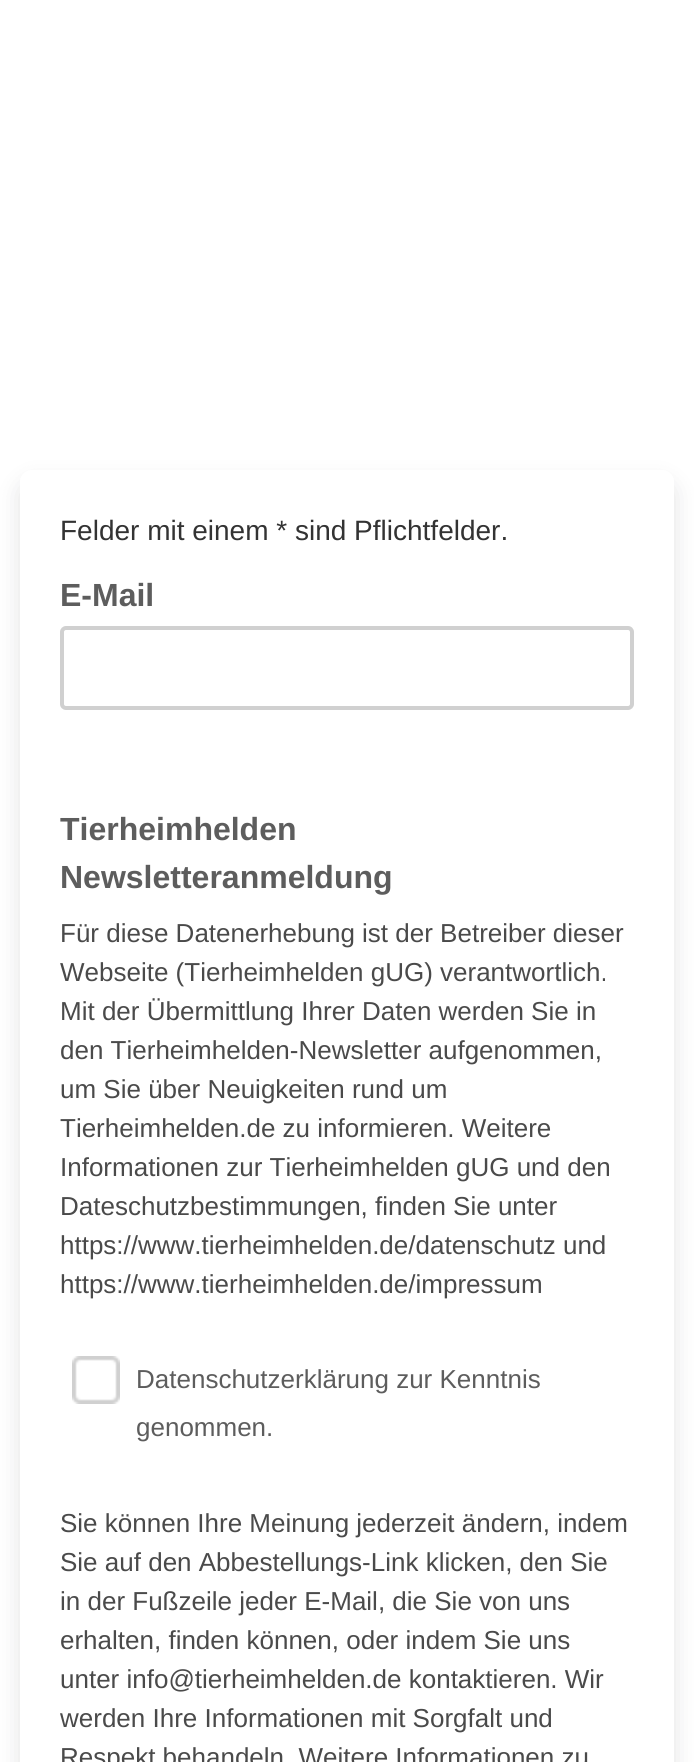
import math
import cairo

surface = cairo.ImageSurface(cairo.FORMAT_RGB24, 694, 1762)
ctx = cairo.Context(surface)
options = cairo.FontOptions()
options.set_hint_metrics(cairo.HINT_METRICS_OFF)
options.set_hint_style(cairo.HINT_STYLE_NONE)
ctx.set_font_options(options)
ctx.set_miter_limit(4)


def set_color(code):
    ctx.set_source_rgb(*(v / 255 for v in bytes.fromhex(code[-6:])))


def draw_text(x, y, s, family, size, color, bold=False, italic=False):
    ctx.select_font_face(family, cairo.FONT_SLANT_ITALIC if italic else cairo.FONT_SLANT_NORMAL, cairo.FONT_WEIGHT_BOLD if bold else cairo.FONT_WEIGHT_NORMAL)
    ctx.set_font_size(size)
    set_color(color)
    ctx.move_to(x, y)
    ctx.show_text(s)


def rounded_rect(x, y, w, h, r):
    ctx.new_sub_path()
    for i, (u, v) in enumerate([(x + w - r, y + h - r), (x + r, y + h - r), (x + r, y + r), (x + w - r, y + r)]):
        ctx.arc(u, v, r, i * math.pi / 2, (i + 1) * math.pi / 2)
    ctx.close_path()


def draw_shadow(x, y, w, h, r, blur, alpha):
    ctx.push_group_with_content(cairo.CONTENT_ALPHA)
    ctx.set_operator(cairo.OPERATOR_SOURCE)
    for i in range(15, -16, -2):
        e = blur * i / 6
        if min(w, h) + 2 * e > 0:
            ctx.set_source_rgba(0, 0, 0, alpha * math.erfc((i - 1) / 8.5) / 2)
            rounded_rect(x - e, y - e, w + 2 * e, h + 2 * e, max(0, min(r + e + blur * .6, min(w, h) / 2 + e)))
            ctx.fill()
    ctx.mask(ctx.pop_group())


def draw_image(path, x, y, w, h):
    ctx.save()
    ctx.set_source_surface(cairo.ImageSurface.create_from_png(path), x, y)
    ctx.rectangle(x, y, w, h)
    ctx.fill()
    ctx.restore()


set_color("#ffffff")
ctx.paint()
ctx.save()
ctx.set_fill_rule(cairo.FILL_RULE_EVEN_ODD)
ctx.new_path()
ctx.move_to(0, 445)
ctx.line_to(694, 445)
ctx.line_to(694, 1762)
ctx.line_to(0, 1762)
ctx.close_path()
ctx.move_to(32, 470)
ctx.line_to(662, 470)
ctx.curve_to(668.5, 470, 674, 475.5, 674, 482)
ctx.line_to(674, 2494)
ctx.curve_to(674, 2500.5, 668.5, 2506, 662, 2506)
ctx.line_to(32, 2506)
ctx.curve_to(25.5, 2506, 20, 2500.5, 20, 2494)
ctx.line_to(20, 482)
ctx.curve_to(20, 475.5, 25.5, 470, 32, 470)
ctx.close_path()
ctx.clip()
set_color("#0d1216")
draw_shadow(20, 482, 654, 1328, 12, 12, 0.12)
ctx.restore()
draw_text(60, 540, "Felder mit einem * sind Pflichtfelder.", "Liberation Sans", 28, "#333333")
draw_text(60, 606, "E-Mail", "Liberation Sans", 32, "#5d5d5d", bold=True)
rounded_rect(62, 628, 570, 80, 4)
set_color("#d0d0d0")
ctx.set_line_width(4)
ctx.stroke()
draw_text(60, 840, "Tierheimhelden", "Liberation Sans", 32, "#5d5d5d", bold=True)
draw_text(60, 888, "Newsletteranmeldung", "Liberation Sans", 32, "#5d5d5d", bold=True)
draw_text(60, 942, "Für diese Datenerhebung ist der Betreiber dieser", "Liberation Sans", 26, "#4a4a4a")
draw_text(60, 981, "Webseite (Tierheimhelden gUG) verantwortlich.", "Liberation Sans", 26, "#4a4a4a")
draw_text(60, 1020, "Mit der Übermittlung Ihrer Daten werden Sie in", "Liberation Sans", 26, "#4a4a4a")
draw_text(60, 1059, "den Tierheimhelden-Newsletter aufgenommen,", "Liberation Sans", 26, "#4a4a4a")
draw_text(60, 1098, "um Sie über Neuigkeiten rund um", "Liberation Sans", 26, "#4a4a4a")
draw_text(60, 1137, "Tierheimhelden.de zu informieren. Weitere", "Liberation Sans", 26, "#4a4a4a")
draw_text(60, 1176, "Informationen zur Tierheimhelden gUG und den", "Liberation Sans", 26, "#4a4a4a")
draw_text(60, 1215, "Dateschutzbestimmungen, finden Sie unter", "Liberation Sans", 26, "#4a4a4a")
draw_text(60, 1254, "https://www.tierheimhelden.de/datenschutz und", "Liberation Sans", 26, "#4a4a4a")
draw_text(60, 1293, "https://www.tierheimhelden.de/impressum", "Liberation Sans", 26, "#4a4a4a")
draw_image("assets/img1.png", 72, 1356, 48, 48)
draw_text(136, 1388, "Datenschutzerklärung zur Kenntnis", "Liberation Sans", 26, "#5d5d5d")
draw_text(136, 1436, "genommen.", "Liberation Sans", 26, "#5d5d5d")
draw_text(60, 1532, "Sie können Ihre Meinung jederzeit ändern, indem", "Liberation Sans", 26, "#4a4a4a")
draw_text(60, 1571, "Sie auf den Abbestellungs-Link klicken, den Sie", "Liberation Sans", 26, "#4a4a4a")
draw_text(60, 1610, "in der Fußzeile jeder E-Mail, die Sie von uns", "Liberation Sans", 26, "#4a4a4a")
draw_text(60, 1649, "erhalten, finden können, oder indem Sie uns", "Liberation Sans", 26, "#4a4a4a")
draw_text(60, 1688, "unter info@tierheimhelden.de kontaktieren. Wir", "Liberation Sans", 26, "#4a4a4a")
draw_text(60, 1727, "werden Ihre Informationen mit Sorgfalt und", "Liberation Sans", 26, "#4a4a4a")
draw_text(60, 1766, "Respekt behandeln. Weitere Informationen zu", "Liberation Sans", 26, "#4a4a4a")
surface.write_to_png("output.png")
